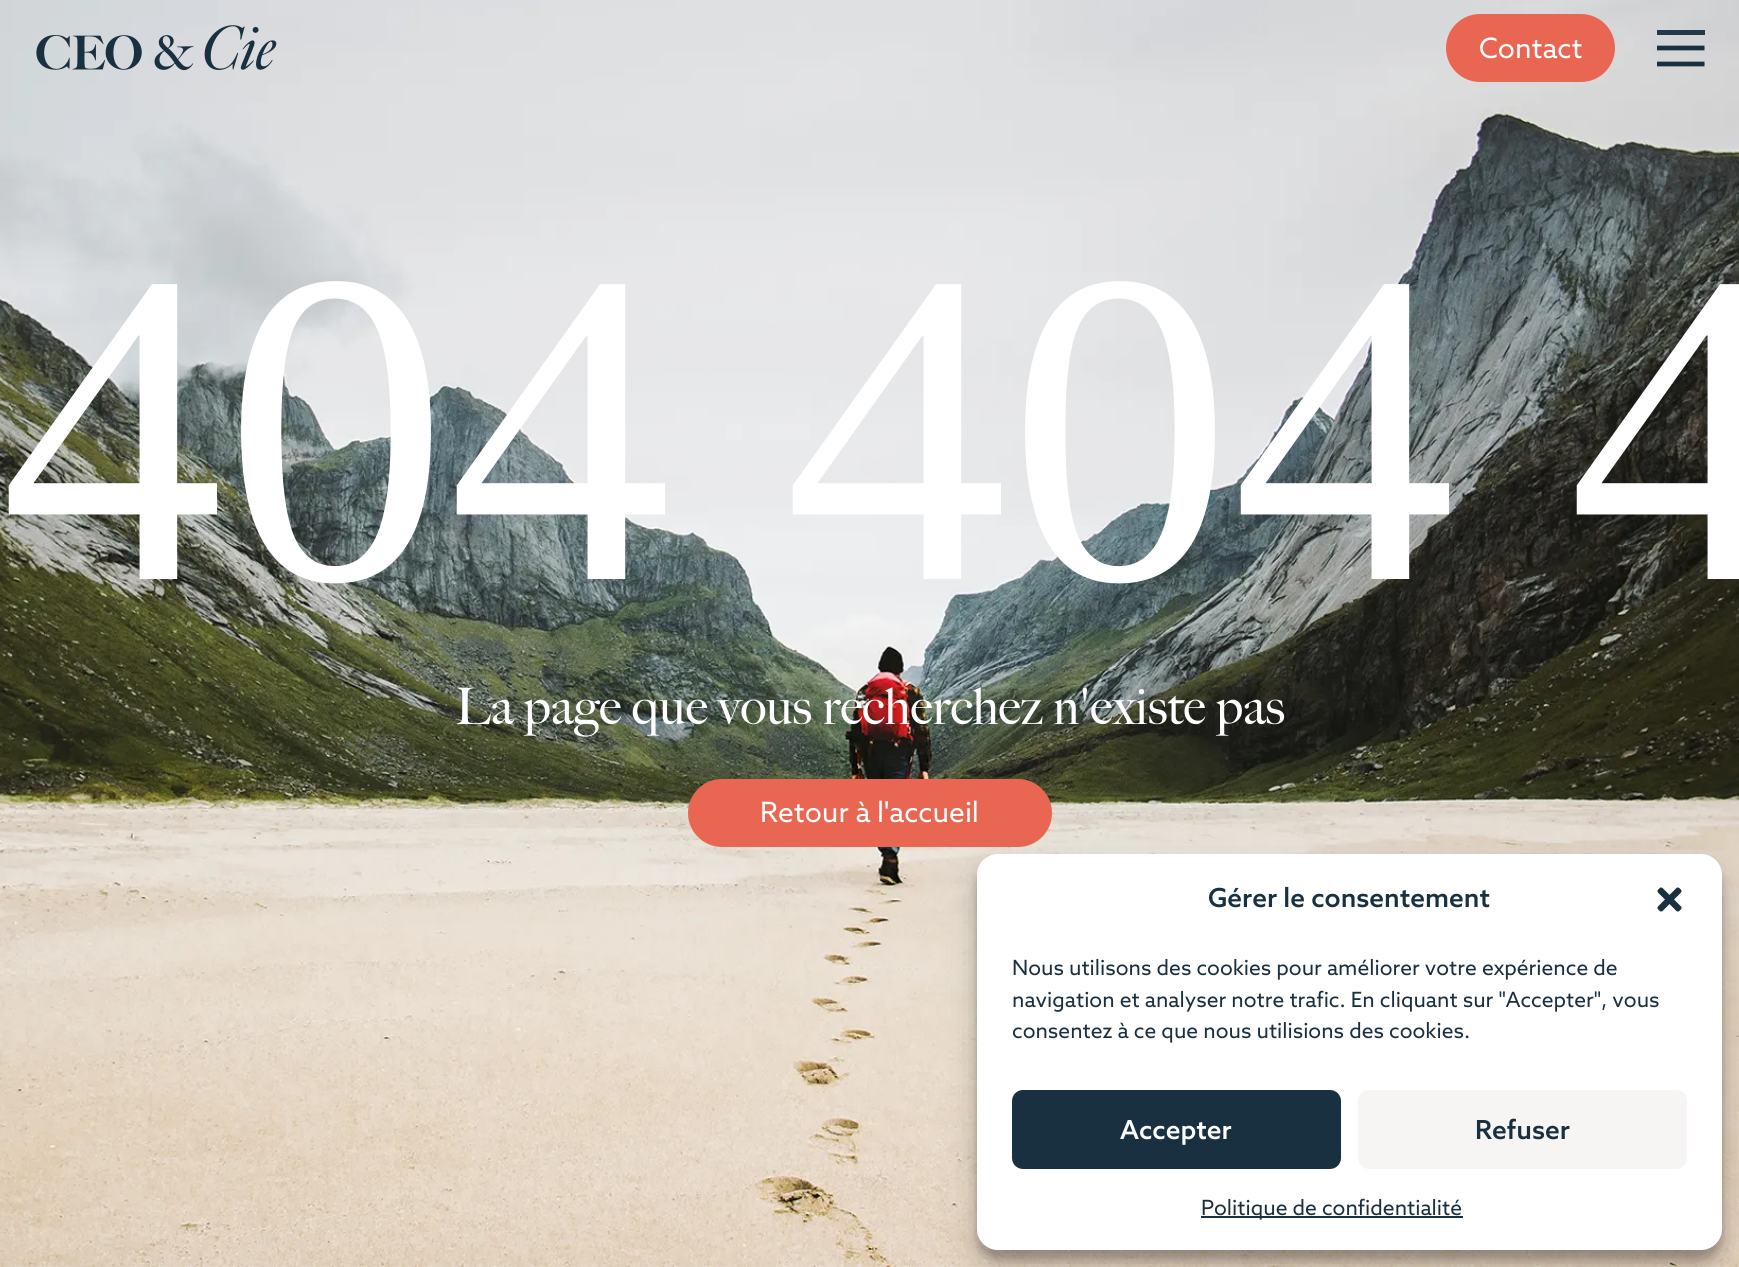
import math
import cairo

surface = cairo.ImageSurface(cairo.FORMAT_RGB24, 1739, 1267)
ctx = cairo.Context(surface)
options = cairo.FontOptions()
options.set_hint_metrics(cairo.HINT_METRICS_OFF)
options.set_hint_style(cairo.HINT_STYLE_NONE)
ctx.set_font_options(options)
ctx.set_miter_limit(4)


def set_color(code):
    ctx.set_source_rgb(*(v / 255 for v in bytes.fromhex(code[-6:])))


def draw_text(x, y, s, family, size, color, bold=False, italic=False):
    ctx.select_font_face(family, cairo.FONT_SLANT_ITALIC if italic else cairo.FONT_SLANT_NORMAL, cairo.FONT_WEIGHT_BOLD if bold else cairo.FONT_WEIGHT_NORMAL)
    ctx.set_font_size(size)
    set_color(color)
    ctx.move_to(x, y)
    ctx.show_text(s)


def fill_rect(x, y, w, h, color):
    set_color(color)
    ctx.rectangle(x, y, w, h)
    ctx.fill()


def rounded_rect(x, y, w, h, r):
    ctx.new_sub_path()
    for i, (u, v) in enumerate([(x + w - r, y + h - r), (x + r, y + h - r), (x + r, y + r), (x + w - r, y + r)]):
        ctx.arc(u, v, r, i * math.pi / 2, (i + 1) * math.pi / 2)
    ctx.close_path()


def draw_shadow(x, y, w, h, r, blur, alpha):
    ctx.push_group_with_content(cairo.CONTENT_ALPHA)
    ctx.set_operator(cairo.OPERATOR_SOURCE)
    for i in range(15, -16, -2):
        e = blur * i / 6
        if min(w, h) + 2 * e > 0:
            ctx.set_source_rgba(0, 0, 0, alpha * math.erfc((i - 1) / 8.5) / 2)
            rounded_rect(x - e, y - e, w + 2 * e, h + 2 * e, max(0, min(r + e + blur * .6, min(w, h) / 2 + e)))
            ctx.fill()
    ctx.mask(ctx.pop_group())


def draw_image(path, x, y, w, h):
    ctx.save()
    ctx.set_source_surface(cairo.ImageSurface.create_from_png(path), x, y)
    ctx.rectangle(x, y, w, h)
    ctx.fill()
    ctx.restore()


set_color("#ffffff")
ctx.paint()
draw_image("assets/img2.png", 0, 0, 1739, 1267)
draw_image("assets/img1.png", 36, 25, 241, 46)
set_color("#e96752")
rounded_rect(1447, 15, 167, 66, 33)
ctx.fill_preserve()
ctx.stroke()
draw_text(1479, 58, "Contact", "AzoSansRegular", 28, "#ffffff")
ctx.new_path()
ctx.move_to(1657, 48)
ctx.line_to(1704.5, 48)
set_color("#193041")
ctx.set_line_width(4.7)
ctx.stroke()
ctx.set_source_rgba(0.098, 0.188, 0.255, 0.94)
ctx.rectangle(1657, 30, 48, 5)
ctx.fill()
ctx.new_path()
ctx.move_to(1657, 64)
ctx.line_to(1704.5, 64)
set_color("#193041")
ctx.stroke()
draw_text(0, 579, "404 404 4", "Liberation Serif", 448, "#ffffff")
draw_text(455, 724, "La page que vous recherchez n'existe pas", "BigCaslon", 50.4, "#ffffff")
set_color("#e96752")
rounded_rect(689, 780, 362, 66, 33)
ctx.fill_preserve()
ctx.set_line_width(2)
ctx.stroke()
draw_text(760, 822, "Retour à l'accueil", "AzoSansRegular", 28, "#ffffff")
set_color("#000000")
draw_shadow(977, 865, 745, 395, 21, 5, 0.23)
draw_shadow(977, 872, 745, 395, 21, 17.5, 0.19)
set_color("#ffffff")
rounded_rect(977, 854, 745, 396, 21)
ctx.fill()
draw_text(1208, 907, "Gérer le consentement", "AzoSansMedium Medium", 26.25, "#193041")
draw_image("assets/img3.png", 1657, 887, 25, 25)
draw_text(1012, 975, "Nous utilisons des cookies pour améliorer votre expérience de", "AzoSansRegular", 21, "#193041")
draw_text(1012, 1007, "navigation et analyser notre trafic. En cliquant sur \"Accepter\", vous", "AzoSansRegular", 21, "#193041")
draw_text(1012, 1038, "consentez à ce que nous utilisions des cookies.", "AzoSansRegular", 21, "#193041")
rounded_rect(1013, 1091, 327, 77, 10)
ctx.fill_preserve()
ctx.stroke()
draw_text(1120, 1139, "Accepter", "AzoSansMedium Medium", 26.25, "#ffffff")
set_color("#f6f5f4")
rounded_rect(1359, 1091, 327, 77, 10)
ctx.fill_preserve()
ctx.stroke()
draw_text(1475, 1139, "Refuser", "AzoSansMedium Medium", 26.25, "#193041")
fill_rect(1201, 1216, 262, 2, "#193041")
draw_text(1201, 1215, "Politique de confidentialité", "AzoSansRegular", 21, "#193041")
surface.write_to_png("output.png")
